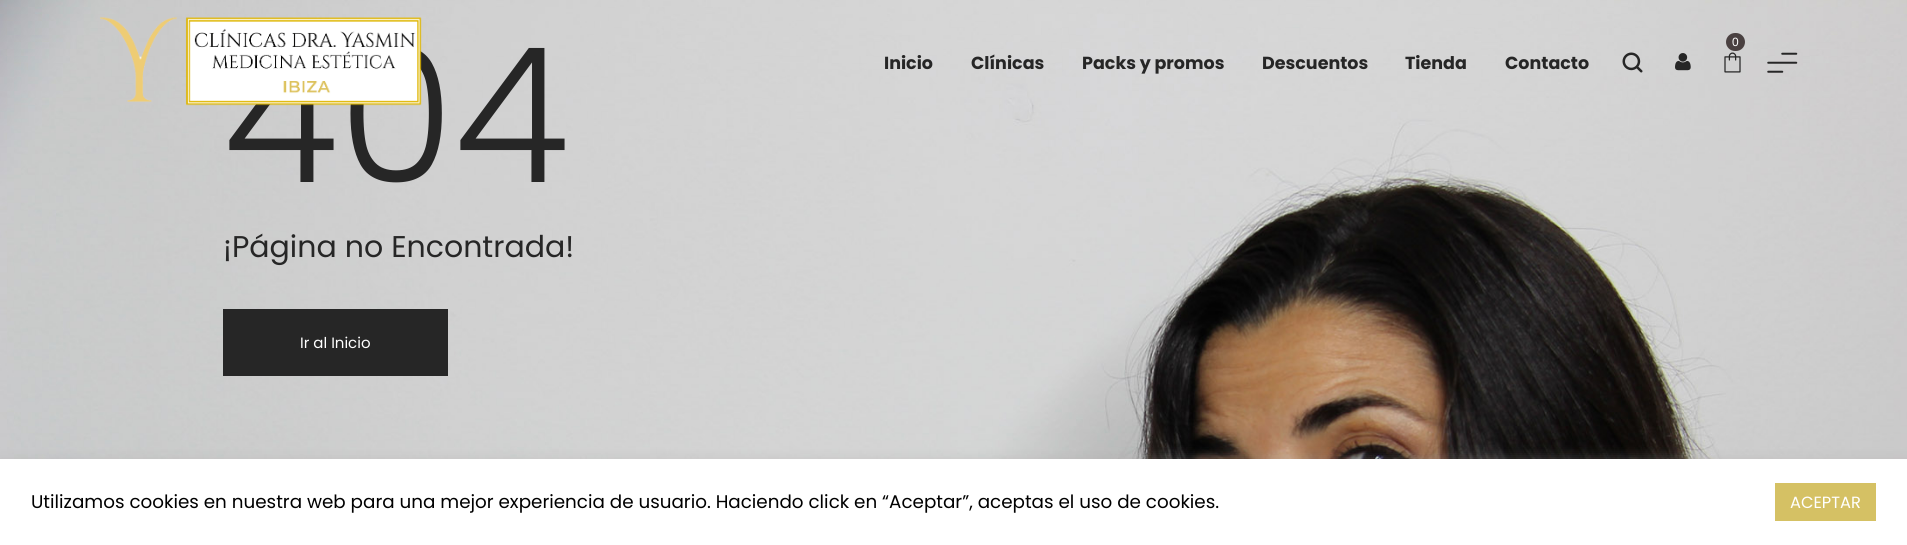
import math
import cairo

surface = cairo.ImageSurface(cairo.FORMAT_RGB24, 1907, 545)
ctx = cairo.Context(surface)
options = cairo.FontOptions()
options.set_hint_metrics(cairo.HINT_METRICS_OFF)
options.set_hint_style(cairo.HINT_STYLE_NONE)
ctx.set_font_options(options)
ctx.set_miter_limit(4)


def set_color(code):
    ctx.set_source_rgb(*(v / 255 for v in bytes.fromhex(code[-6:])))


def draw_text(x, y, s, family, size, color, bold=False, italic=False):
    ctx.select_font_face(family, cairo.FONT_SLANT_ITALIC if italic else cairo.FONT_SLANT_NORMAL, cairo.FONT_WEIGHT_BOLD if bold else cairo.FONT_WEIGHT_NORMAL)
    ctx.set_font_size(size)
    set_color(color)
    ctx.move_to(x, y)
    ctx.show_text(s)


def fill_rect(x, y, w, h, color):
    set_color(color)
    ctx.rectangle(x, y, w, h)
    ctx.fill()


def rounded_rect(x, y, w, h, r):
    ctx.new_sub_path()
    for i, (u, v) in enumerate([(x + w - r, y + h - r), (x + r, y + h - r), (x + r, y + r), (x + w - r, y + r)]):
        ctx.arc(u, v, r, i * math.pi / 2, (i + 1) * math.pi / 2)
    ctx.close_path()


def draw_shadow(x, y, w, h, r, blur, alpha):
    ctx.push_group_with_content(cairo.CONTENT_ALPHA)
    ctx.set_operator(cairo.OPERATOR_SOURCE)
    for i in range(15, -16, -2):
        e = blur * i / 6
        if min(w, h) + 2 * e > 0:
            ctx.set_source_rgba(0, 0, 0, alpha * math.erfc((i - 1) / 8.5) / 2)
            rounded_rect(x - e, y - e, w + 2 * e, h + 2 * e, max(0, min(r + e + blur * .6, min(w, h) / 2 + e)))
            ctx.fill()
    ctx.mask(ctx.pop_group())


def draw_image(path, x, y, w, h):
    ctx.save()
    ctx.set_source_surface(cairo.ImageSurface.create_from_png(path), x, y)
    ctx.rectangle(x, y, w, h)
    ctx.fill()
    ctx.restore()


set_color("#ffffff")
ctx.paint()
draw_image("assets/img1.png", 0, 0, 1907, 459)
draw_text(223, 182, "404", "Poppins Light", 188, "#262626")
draw_text(223, 257, "¡Página no Encontrada!", "Poppins", 30, "#262626")
fill_rect(223, 309, 225, 67, "#262626")
draw_text(300, 348, "Ir al Inicio", "Poppins", 15, "#ffffff")
draw_image("assets/img2.png", 100, 17, 322, 89)
set_color("#4a4141")
rounded_rect(1726, 33, 19, 18, 9)
ctx.fill()
draw_text(1732, 46, "0", "Liberation Sans", 12, "#ffffff")
draw_image("assets/img3.png", 1724, 52, 17, 21)
draw_text(884, 69, "Inicio", "Poppins", 17.5, "#262626", bold=True)
draw_text(971, 69, "Clínicas", "Poppins", 17.5, "#262626", bold=True)
draw_text(1082, 69, "Packs y promos", "Poppins", 17.5, "#262626", bold=True)
draw_text(1262, 69, "Descuentos", "Poppins", 17.5, "#262626", bold=True)
draw_text(1405, 69, "Tienda", "Poppins", 17.5, "#262626", bold=True)
draw_text(1505, 69, "Contacto", "Poppins", 17.5, "#262626", bold=True)
draw_image("assets/img4.png", 1622, 52, 21, 21)
draw_image("assets/img5.png", 1675, 53, 16, 18)
draw_image("assets/img6.png", 1767, 52, 31, 21)
set_color("#acabab")
draw_shadow(0, 458, 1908, 86, 0, 6, 0.3)
fill_rect(0, 459, 1907, 86, "#ffffff")
draw_text(31, 508, "Utilizamos cookies en nuestra web para una mejor experiencia de usuario. Haciendo click en “Aceptar”, aceptas el uso de cookies.", "Poppins", 18.33, "#000000")
fill_rect(1775, 483, 101, 38, "#d5c164")
draw_text(1790, 508, "ACEPTAR", "Poppins", 16.25, "#ffffff")
surface.write_to_png("output.png")
